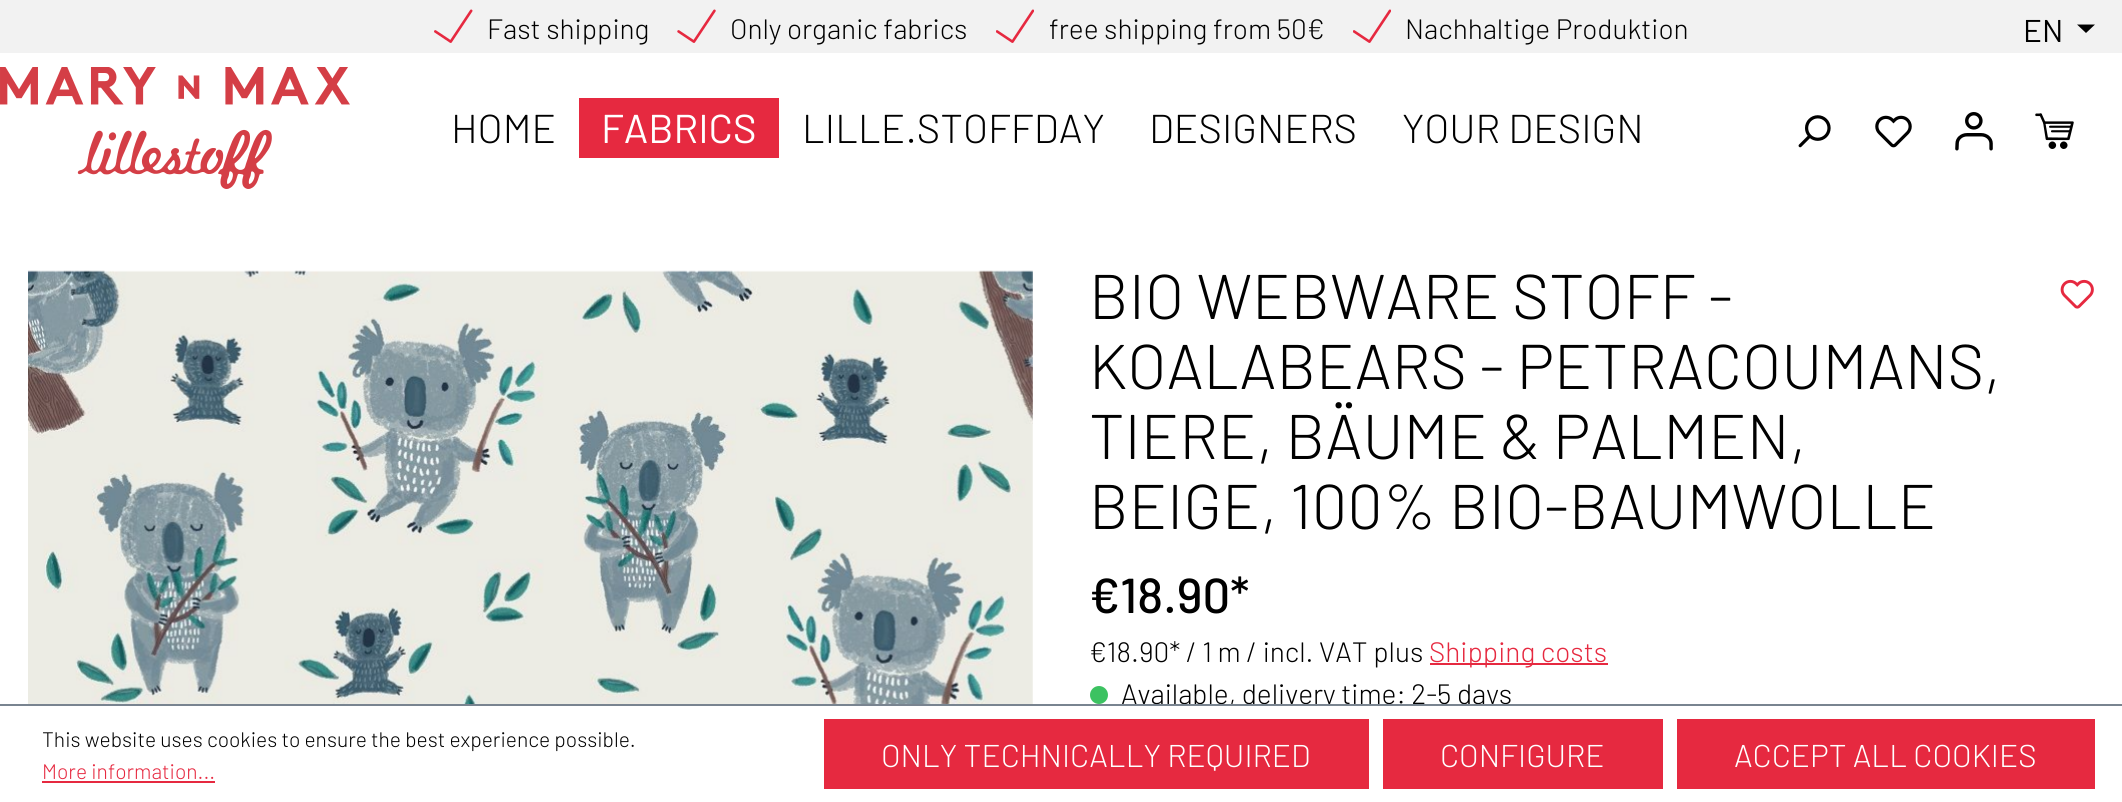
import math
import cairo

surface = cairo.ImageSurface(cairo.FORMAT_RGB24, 2122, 802)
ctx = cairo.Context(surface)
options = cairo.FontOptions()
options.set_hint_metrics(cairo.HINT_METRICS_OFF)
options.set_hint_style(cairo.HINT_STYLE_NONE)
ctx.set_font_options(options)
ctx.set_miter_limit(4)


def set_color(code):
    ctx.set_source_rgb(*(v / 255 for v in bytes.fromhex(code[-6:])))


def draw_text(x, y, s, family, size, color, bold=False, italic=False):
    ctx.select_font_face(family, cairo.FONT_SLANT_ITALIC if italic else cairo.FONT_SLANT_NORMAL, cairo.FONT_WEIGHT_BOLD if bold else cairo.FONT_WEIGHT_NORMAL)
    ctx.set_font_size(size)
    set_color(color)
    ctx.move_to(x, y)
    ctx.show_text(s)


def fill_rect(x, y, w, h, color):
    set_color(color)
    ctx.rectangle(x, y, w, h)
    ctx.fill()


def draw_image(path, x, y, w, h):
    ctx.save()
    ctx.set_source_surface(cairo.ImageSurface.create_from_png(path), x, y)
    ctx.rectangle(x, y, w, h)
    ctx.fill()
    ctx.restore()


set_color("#ffffff")
ctx.paint()
fill_rect(0, 0, 2122, 53, "#f2f2f2")
draw_image("assets/img1.png", 434, 9, 39, 34)
draw_text(487, 39, "Fast shipping", "Barlow Light", 28, "#000000")
draw_image("assets/img2.png", 677, 9, 39, 34)
draw_text(730, 39, "Only organic fabrics", "Barlow Light", 28, "#000000")
draw_image("assets/img3.png", 996, 9, 38, 34)
draw_text(1049, 39, "free shipping from 50€", "Barlow Light", 28, "#000000")
draw_image("assets/img3.png", 1353, 9, 38, 34)
draw_text(1405, 39, "Nachhaltige Produktion", "Barlow Light", 28, "#000000")
draw_text(2023, 42, "EN", "Barlow", 31.5, "#000000")
ctx.new_path()
ctx.move_to(2077, 24.5)
ctx.line_to(2095, 24.5)
ctx.line_to(2086, 33)
ctx.close_path()
ctx.fill()
draw_image("assets/img4.png", 0, 67, 350, 122)
draw_text(451, 143, "HOME", "Barlow Light", 40.25, "#000000")
fill_rect(579, 98, 200, 60, "#e62940")
draw_text(601, 143, "FABRICS", "Barlow", 40.25, "#ffffff")
draw_text(802, 143, "LILLE.STOFFDAY", "Barlow Light", 40.25, "#000000")
draw_text(1149, 143, "DESIGNERS", "Barlow Light", 40.25, "#000000")
draw_text(1402, 143, "YOUR DESIGN", "Barlow Light", 40.25, "#000000")
draw_image("assets/img5.png", 1798, 115, 33, 33)
draw_image("assets/img6.png", 1875, 115, 37, 33)
draw_image("assets/img7.png", 1955, 112, 38, 39)
draw_image("assets/img8.png", 2035, 113, 39, 36)
draw_image("assets/img9.png", 28, 270, 1005, 434)
draw_text(1089, 319, "BIO WEBWARE STOFF -", "Barlow Light", 63, "#000000")
draw_text(1089, 389, "KOALABEARS - PETRACOUMANS,", "Barlow Light", 63, "#000000")
draw_text(1089, 459, "TIERE, BÄUME & PALMEN,", "Barlow Light", 63, "#000000")
draw_text(1089, 529, "BEIGE, 100% BIO-BAUMWOLLE", "Barlow Light", 63, "#000000")
draw_image("assets/img10.png", 2060, 279, 34, 30)
draw_text(1089, 613, "€18.90*", "Barlow Medium", 49, "#000000")
draw_text(1089, 662, "€18.90* / 1 m / incl. VAT plus", "Barlow Light", 28, "#000000")
fill_rect(1430, 663, 178, 2, "#e62940")
draw_text(1429, 662, "Shipping costs", "Barlow Light", 28, "#e62940")
set_color("#3cc261")
ctx.new_path()
ctx.arc(1099, 695, 9, 0, 2 * math.pi)
ctx.fill()
draw_text(1121, 704, "Available, delivery time: 2-5 days", "Barlow Light", 28, "#000000")
fill_rect(1231, 706, 262, 4, "#ffffff")
fill_rect(0, 704, 2122, 2, "#798490")
draw_text(42, 747, "This website uses cookies to ensure the best experience possible.", "Barlow Light", 21, "#000000")
draw_text(42, 779, "More information...", "Barlow Light", 21, "#e62940")
fill_rect(42, 781, 173, 2, "#e62940")
fill_rect(824, 719, 545, 70, "#e62940")
draw_text(881, 767, "ONLY TECHNICALLY REQUIRED", "Barlow Light", 31.5, "#ffffff")
fill_rect(1383, 719, 280, 70, "#e62940")
draw_text(1440, 767, "CONFIGURE", "Barlow Light", 31.5, "#ffffff")
fill_rect(1677, 719, 418, 70, "#e62940")
draw_text(1734, 767, "ACCEPT ALL COOKIES", "Barlow Light", 31.5, "#ffffff")
surface.write_to_png("output.png")
